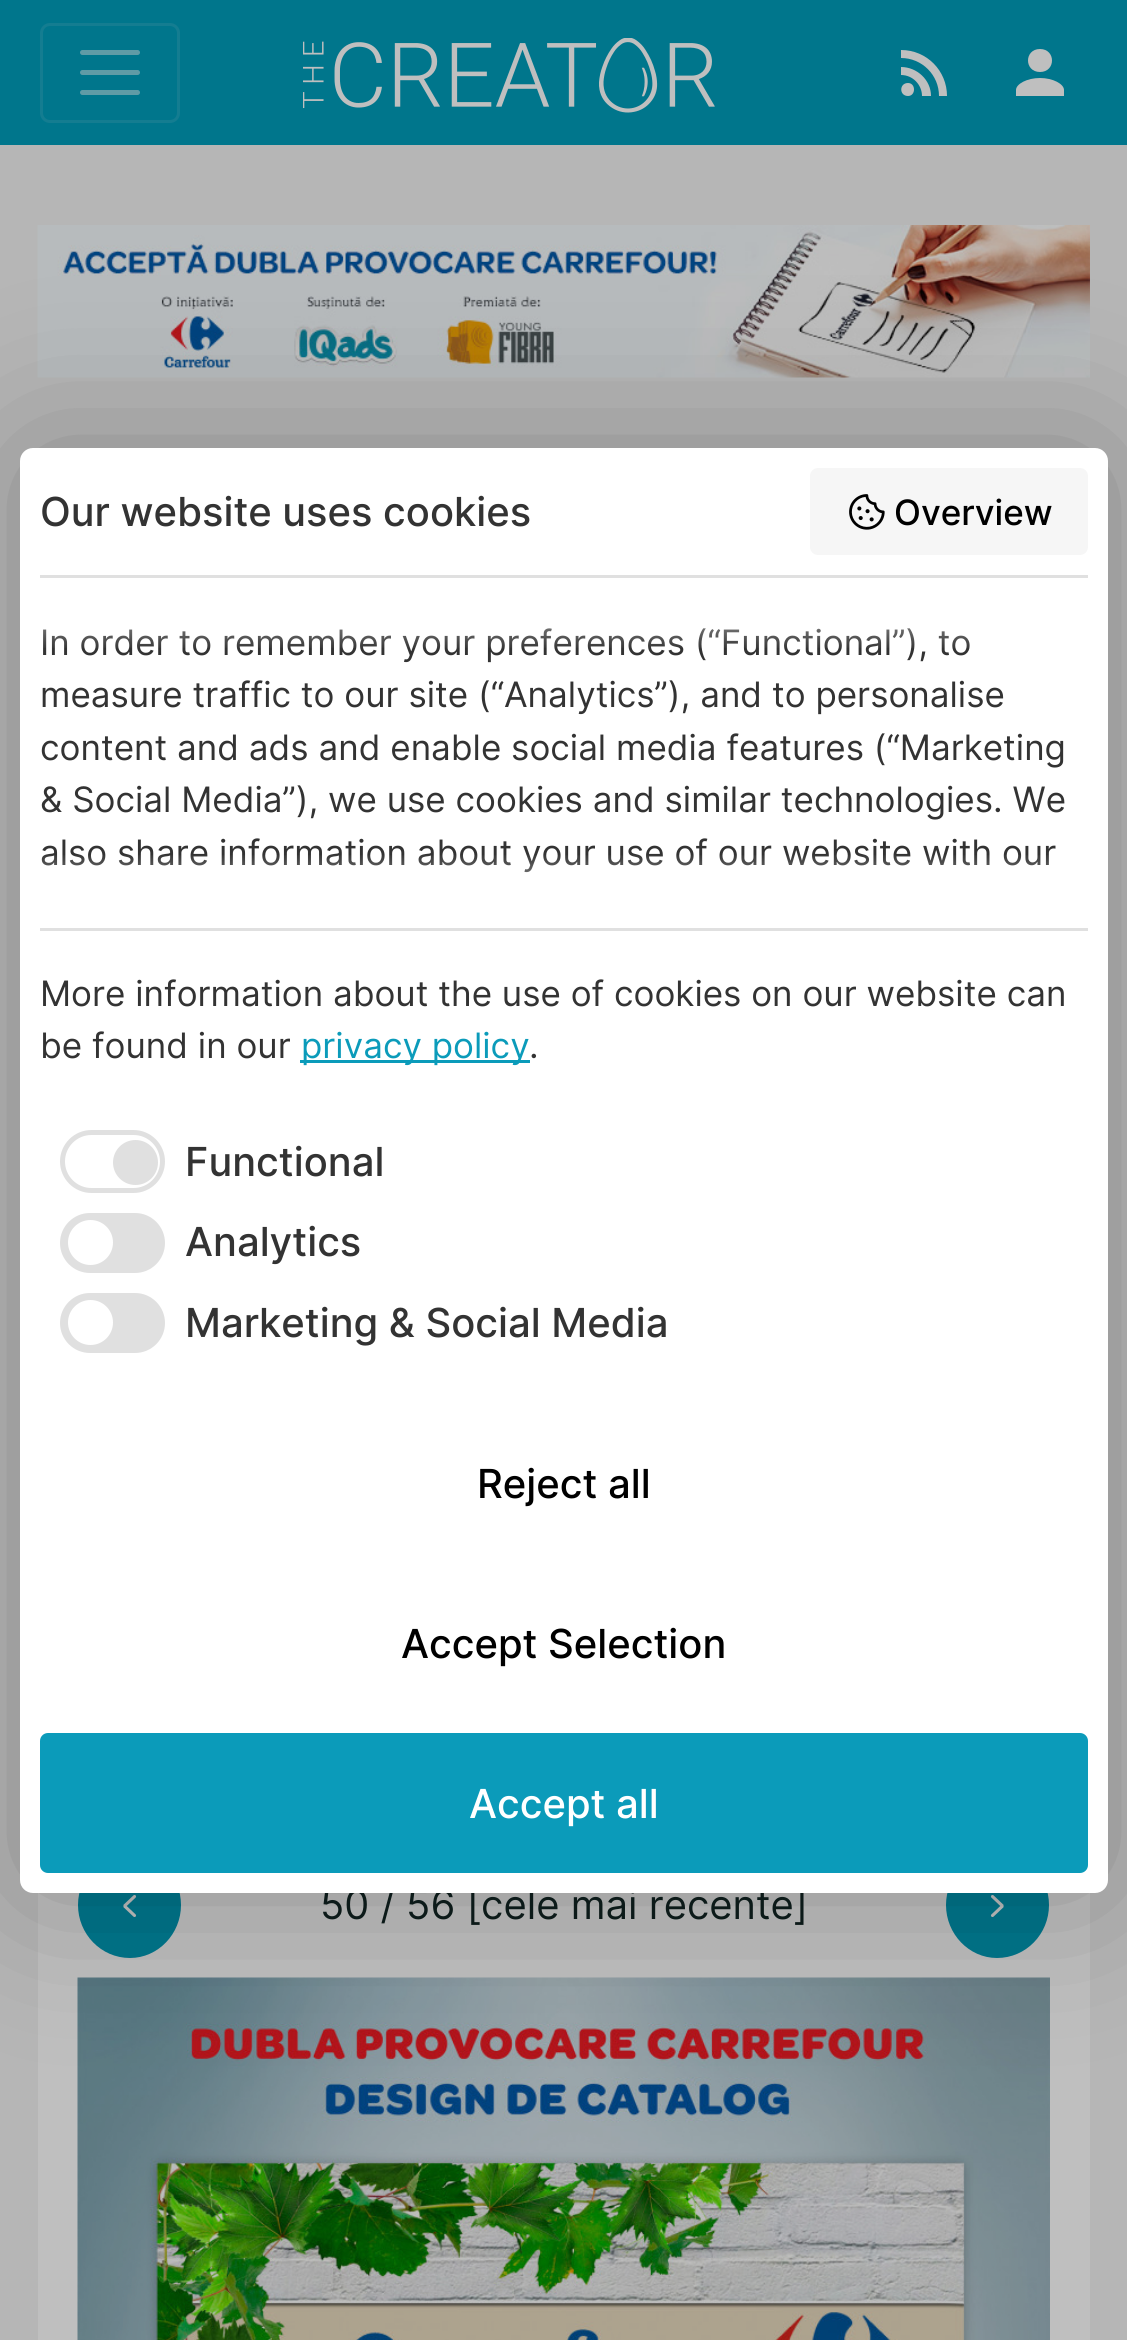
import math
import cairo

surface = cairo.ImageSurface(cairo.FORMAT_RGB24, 1127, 2340)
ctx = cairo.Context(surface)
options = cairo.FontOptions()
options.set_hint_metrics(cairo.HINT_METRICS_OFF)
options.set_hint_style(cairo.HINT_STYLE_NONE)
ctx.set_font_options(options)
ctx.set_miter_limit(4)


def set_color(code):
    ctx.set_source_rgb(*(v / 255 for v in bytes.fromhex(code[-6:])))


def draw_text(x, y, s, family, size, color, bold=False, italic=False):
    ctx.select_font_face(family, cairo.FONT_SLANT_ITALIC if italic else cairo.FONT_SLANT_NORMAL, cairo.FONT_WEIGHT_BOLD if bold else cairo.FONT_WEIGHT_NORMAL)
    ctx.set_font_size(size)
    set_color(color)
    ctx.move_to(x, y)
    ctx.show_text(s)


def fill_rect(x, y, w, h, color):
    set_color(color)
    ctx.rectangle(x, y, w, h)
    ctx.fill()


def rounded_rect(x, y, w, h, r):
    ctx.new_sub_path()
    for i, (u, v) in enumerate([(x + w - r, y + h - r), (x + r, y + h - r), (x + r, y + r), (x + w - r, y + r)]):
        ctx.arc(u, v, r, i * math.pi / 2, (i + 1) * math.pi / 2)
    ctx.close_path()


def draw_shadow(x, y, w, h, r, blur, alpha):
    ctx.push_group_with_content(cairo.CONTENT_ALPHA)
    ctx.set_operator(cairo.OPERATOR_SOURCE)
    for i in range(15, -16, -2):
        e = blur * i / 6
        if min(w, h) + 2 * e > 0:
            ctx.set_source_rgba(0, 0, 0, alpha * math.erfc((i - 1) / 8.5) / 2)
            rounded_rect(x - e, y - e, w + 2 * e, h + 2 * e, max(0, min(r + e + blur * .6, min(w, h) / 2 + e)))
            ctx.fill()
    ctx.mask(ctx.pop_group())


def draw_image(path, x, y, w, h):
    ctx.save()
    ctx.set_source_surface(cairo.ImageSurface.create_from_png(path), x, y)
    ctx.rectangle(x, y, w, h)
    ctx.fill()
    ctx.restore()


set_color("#b6b6b6")
ctx.paint()
fill_rect(0, 0, 1127, 145, "#00768c")
rounded_rect(41.5, 24.5, 137, 97, 8.5)
set_color("#147d91")
ctx.set_line_width(3)
ctx.stroke()
ctx.new_path()
ctx.move_to(82.5, 52.5)
ctx.line_to(137.5, 52.5)
ctx.move_to(82.5, 72.5)
ctx.line_to(137.5, 72.5)
ctx.move_to(82.5, 92.5)
ctx.line_to(137.5, 92.5)
set_color("#609ba6")
ctx.set_line_width(5)
ctx.set_line_cap(cairo.LINE_CAP_ROUND)
ctx.stroke()
draw_image("assets/img1.png", 303, 38, 412, 75)
set_color("#bfbfbf")
ctx.new_path()
ctx.move_to(908, 83)
ctx.curve_to(916, 83, 916, 96, 908, 96)
ctx.curve_to(899, 96, 899, 83, 908, 83)
ctx.close_path()
ctx.move_to(901, 50)
ctx.curve_to(927, 50, 947, 71, 947, 96)
ctx.line_to(939, 96)
ctx.curve_to(939, 75, 922, 58, 901, 58)
ctx.close_path()
ctx.move_to(901, 67)
ctx.curve_to(917, 67, 931, 80, 931, 96)
ctx.line_to(922, 96)
ctx.curve_to(922, 85, 913, 75, 901, 75)
ctx.close_path()
ctx.fill()
ctx.new_path()
ctx.move_to(1040, 49)
ctx.curve_to(1056, 49, 1056, 72, 1040, 72)
ctx.curve_to(1024, 72, 1024, 49, 1040, 49)
ctx.close_path()
ctx.move_to(1040, 78)
ctx.curve_to(1053, 78, 1064, 84, 1064, 90)
ctx.line_to(1064, 96)
ctx.line_to(1016, 96)
ctx.line_to(1016, 90)
ctx.curve_to(1016, 84, 1027, 78, 1040, 78)
ctx.close_path()
ctx.fill()
draw_image("assets/img3.png", 37, 225, 1053, 153)
fill_rect(38, 1893, 1052, 447, "#bfbfbf")
set_color("#00768c")
ctx.set_fill_rule(cairo.FILL_RULE_EVEN_ODD)
ctx.new_path()
ctx.move_to(130, 1958)
ctx.curve_to(158, 1958, 181, 1934, 181, 1905)
ctx.curve_to(181, 1876, 158, 1852, 130, 1852)
ctx.curve_to(101, 1852, 78, 1876, 78, 1905)
ctx.curve_to(78, 1934, 101, 1958, 130, 1958)
ctx.close_path()
ctx.fill()
ctx.new_path()
ctx.move_to(134.5, 1915.5)
ctx.line_to(125, 1906.5)
ctx.curve_to(125, 1906, 125, 1906, 125, 1905.5)
ctx.line_to(134.5, 1896.5)
set_color("#bfbfbf")
ctx.set_line_width(3.1)
ctx.stroke()
set_color("#00768c")
ctx.new_path()
ctx.move_to(997, 1958)
ctx.curve_to(969, 1958, 946, 1934, 946, 1905)
ctx.curve_to(946, 1876, 969, 1852, 997, 1852)
ctx.curve_to(1026, 1852, 1049, 1876, 1049, 1905)
ctx.curve_to(1049, 1934, 1026, 1958, 997, 1958)
ctx.close_path()
ctx.fill()
ctx.new_path()
ctx.move_to(992.5, 1915.5)
ctx.line_to(1002, 1906.5)
ctx.curve_to(1002, 1906, 1002, 1906, 1002, 1905.5)
ctx.line_to(992.5, 1896.5)
set_color("#bfbfbf")
ctx.stroke()
draw_image("assets/img4.png", 77, 1977, 973, 363)
set_color("#000000")
draw_shadow(20, 448, 1088, 1445, 13, 80, 0.25)
draw_text(320, 1919, "50 / 56 [cele mai recente]", "Inter", 40, "#0c1a19")
set_color("#ffffff")
rounded_rect(20, 448, 1088, 1445, 13)
ctx.fill()
draw_text(40, 526, "Our website uses cookies", "Inter Medium", 40, "#333333")
set_color("#f6f6f6")
rounded_rect(810, 468, 278, 87, 8)
ctx.fill()
draw_image("assets/img2.png", 849, 494, 36, 36)
draw_text(894, 525, "Overview", "Inter Medium", 35, "#000000")
fill_rect(40, 575, 1048, 3, "#e0e0e0")
fill_rect(40, 928, 1048, 3, "#e0e0e0")
draw_text(40, 655, "In order to remember your preferences (“Functional”), to", "Inter", 35, "#333333")
draw_text(40, 707, "measure traffic to our site (“Analytics”), and to personalise", "Inter", 35, "#333333")
draw_text(40, 760, "content and ads and enable social media features (“Marketing", "Inter", 35, "#333333")
draw_text(40, 812, "& Social Media”), we use cookies and similar technologies. We", "Inter", 35, "#333333")
draw_text(40, 865, "also share information about your use of our website with our", "Inter", 35, "#333333")
gradient = cairo.LinearGradient(564, 650, 564, 575)
gradient.add_color_stop_rgba(0, 1, 1, 1, 0)
gradient.add_color_stop_rgba(1, 1, 1, 1, 1)
ctx.set_source(gradient)
ctx.rectangle(43, 628, 927, 20)
ctx.fill()
gradient = cairo.LinearGradient(564, 853, 564, 928)
gradient.add_color_stop_rgba(0, 1, 1, 1, 0)
gradient.add_color_stop_rgba(1, 1, 1, 1, 1)
ctx.set_source(gradient)
ctx.rectangle(41, 855, 1008, 18)
ctx.fill()
draw_text(40, 1006, "More information about the use of cookies on our website can", "Inter", 35, "#333333")
draw_text(40, 1058, "be found in our", "Inter", 35, "#333333")
fill_rect(300, 1060, 230, 3, "#0b9bba")
draw_text(301, 1058, "privacy policy", "Inter", 35, "#0b9bba")
draw_text(529, 1058, ".", "Inter", 35, "#333333")
rounded_rect(62.5, 1132.5, 100, 58, 29)
set_color("#e0e0e0")
ctx.set_line_width(5)
ctx.set_line_cap(cairo.LINE_CAP_BUTT)
ctx.stroke()
ctx.arc(135.5, 1162.5, 22.5, 0, 2 * math.pi)
ctx.fill()
draw_text(185, 1176, "Functional", "Inter Medium", 40, "#333333")
set_color("#e0e0e0")
rounded_rect(62.5, 1215.5, 100, 55, 27.5)
ctx.fill_preserve()
ctx.stroke()
set_color("#ffffff")
ctx.arc(90.5, 1242.5, 22.5, 0, 2 * math.pi)
ctx.fill()
draw_text(185, 1256, "Analytics", "Inter Medium", 40, "#333333")
set_color("#e0e0e0")
rounded_rect(62.5, 1295.5, 100, 55, 27.5)
ctx.fill_preserve()
ctx.stroke()
set_color("#ffffff")
ctx.arc(90.5, 1322.5, 22.5, 0, 2 * math.pi)
ctx.fill()
draw_text(185, 1337, "Marketing & Social Media", "Inter Medium", 40, "#333333")
draw_text(477, 1498, "Reject all", "Inter Medium", 40, "#000000")
draw_text(401, 1658, "Accept Selection", "Inter Medium", 40, "#000000")
set_color("#0b9bba")
rounded_rect(40, 1733, 1048, 140, 8)
ctx.fill()
draw_text(469, 1818, "Accept all", "Inter Medium", 40, "#ffffff")
surface.write_to_png("output.png")
